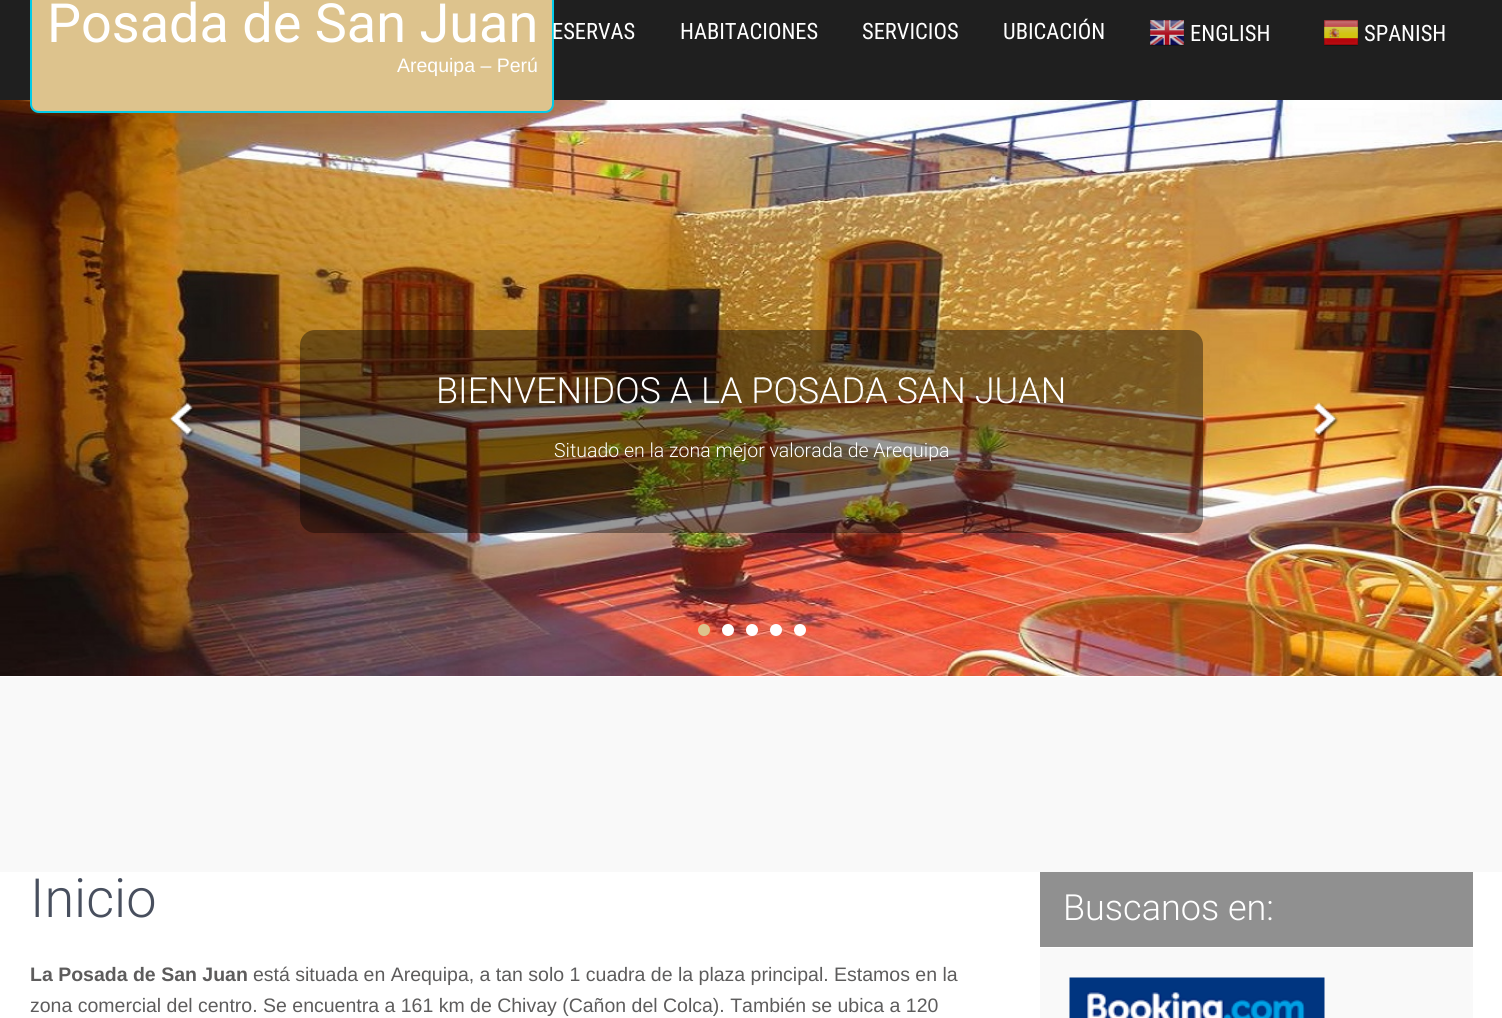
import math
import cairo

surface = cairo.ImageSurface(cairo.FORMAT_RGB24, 1502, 1018)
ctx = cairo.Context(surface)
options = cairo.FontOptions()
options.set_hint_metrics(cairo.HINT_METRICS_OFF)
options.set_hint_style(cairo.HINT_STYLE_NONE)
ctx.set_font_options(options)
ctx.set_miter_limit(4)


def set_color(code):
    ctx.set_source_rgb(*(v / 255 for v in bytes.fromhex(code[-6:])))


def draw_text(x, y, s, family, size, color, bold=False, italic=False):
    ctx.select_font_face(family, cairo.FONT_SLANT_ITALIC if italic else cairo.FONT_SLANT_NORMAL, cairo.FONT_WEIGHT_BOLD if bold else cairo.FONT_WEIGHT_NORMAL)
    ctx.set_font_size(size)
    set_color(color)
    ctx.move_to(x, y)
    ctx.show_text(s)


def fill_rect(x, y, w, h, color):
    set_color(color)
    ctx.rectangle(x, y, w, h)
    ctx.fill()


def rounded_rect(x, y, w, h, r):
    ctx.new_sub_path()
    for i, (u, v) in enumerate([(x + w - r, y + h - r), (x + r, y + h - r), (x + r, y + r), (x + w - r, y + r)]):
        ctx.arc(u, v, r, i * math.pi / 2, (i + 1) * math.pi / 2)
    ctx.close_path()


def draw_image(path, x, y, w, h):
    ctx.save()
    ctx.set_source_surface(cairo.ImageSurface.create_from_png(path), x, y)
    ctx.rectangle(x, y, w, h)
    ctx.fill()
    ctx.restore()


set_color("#ffffff")
ctx.paint()
fill_rect(0, 0, 1502, 100, "#1f1f1f")
draw_image("assets/img3.png", 0, 100, 1502, 576)
set_color("#ddc38d")
ctx.new_path()
ctx.move_to(31, -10)
ctx.line_to(553, -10)
ctx.line_to(553, 104)
ctx.curve_to(553, 108.5, 549.5, 112, 545, 112)
ctx.line_to(39, 112)
ctx.curve_to(34.5, 112, 31, 108.5, 31, 104)
ctx.close_path()
ctx.fill_preserve()
set_color("#03cbe9")
ctx.stroke()
draw_text(47, 42, "Posada de San Juan", "Roboto", 54, "#ffffff")
draw_text(397, 72, "Arequipa – Perú", "Liberation Sans", 19.5, "#ffffff")
draw_text(552, 39, "ESERVAS", "Roboto Condensed", 22.5, "#ffffff")
draw_text(680, 39, "HABITACIONES", "Roboto Condensed", 22.5, "#ffffff")
draw_text(862, 39, "SERVICIOS", "Roboto Condensed", 22.5, "#ffffff")
draw_text(1003, 39, "UBICACIÓN", "Roboto Condensed", 22.5, "#ffffff")
draw_image("assets/img1.png", 1150, 20, 34, 26)
draw_text(1190, 41, "ENGLISH", "Roboto Condensed", 22.5, "#ffffff")
draw_image("assets/img2.png", 1324, 20, 34, 26)
draw_text(1364, 41, "SPANISH", "Roboto Condensed", 22.5, "#ffffff")
ctx.set_source_rgba(0, 0, 0, 0.4)
rounded_rect(300, 330, 903, 203, 15)
ctx.fill()
draw_text(436, 403, "BIENVENIDOS A LA POSADA SAN JUAN", "Roboto Light", 36, "#ffffff")
draw_text(554, 457, "Situado en la zona mejor valorada de Arequipa", "Roboto Light", 19.5, "#ffffff")
draw_image("assets/img4.png", 169, 402, 26, 36)
draw_image("assets/img5.png", 1313, 402, 26, 36)
set_color("#ddc38d")
ctx.arc(704, 630, 6, 0, 2 * math.pi)
ctx.fill()
set_color("#ffffff")
ctx.arc(728, 630, 6, 0, 2 * math.pi)
ctx.fill()
ctx.arc(752, 630, 6, 0, 2 * math.pi)
ctx.fill()
ctx.arc(776, 630, 6, 0, 2 * math.pi)
ctx.fill()
ctx.arc(800, 630, 6, 0, 2 * math.pi)
ctx.fill()
fill_rect(0, 677, 1502, 195, "#f9f9f9")
draw_text(30, 917, "Inicio", "Roboto Light", 54, "#484f5e")
draw_text(30, 981, "La Posada de San Juan", "Liberation Sans", 19.5, "#5d5c5c", bold=True)
draw_text(253, 981, "está situada en Arequipa, a tan solo 1 cuadra de la plaza principal. Estamos en la", "Liberation Sans", 19.5, "#5d5c5c")
draw_text(30, 1012, "zona comercial del centro. Se encuentra a 161 km de Chivay (Cañon del Colca). También se ubica a 120", "Liberation Sans", 19.5, "#5d5c5c")
fill_rect(1040, 872, 433, 75, "#909090")
draw_text(1063, 920, "Buscanos en:", "Roboto Light", 36, "#ffffff")
fill_rect(1040, 948, 433, 70, "#f9f9f9")
draw_image("assets/img6.png", 1069, 977, 256, 41)
surface.write_to_png("output.png")
